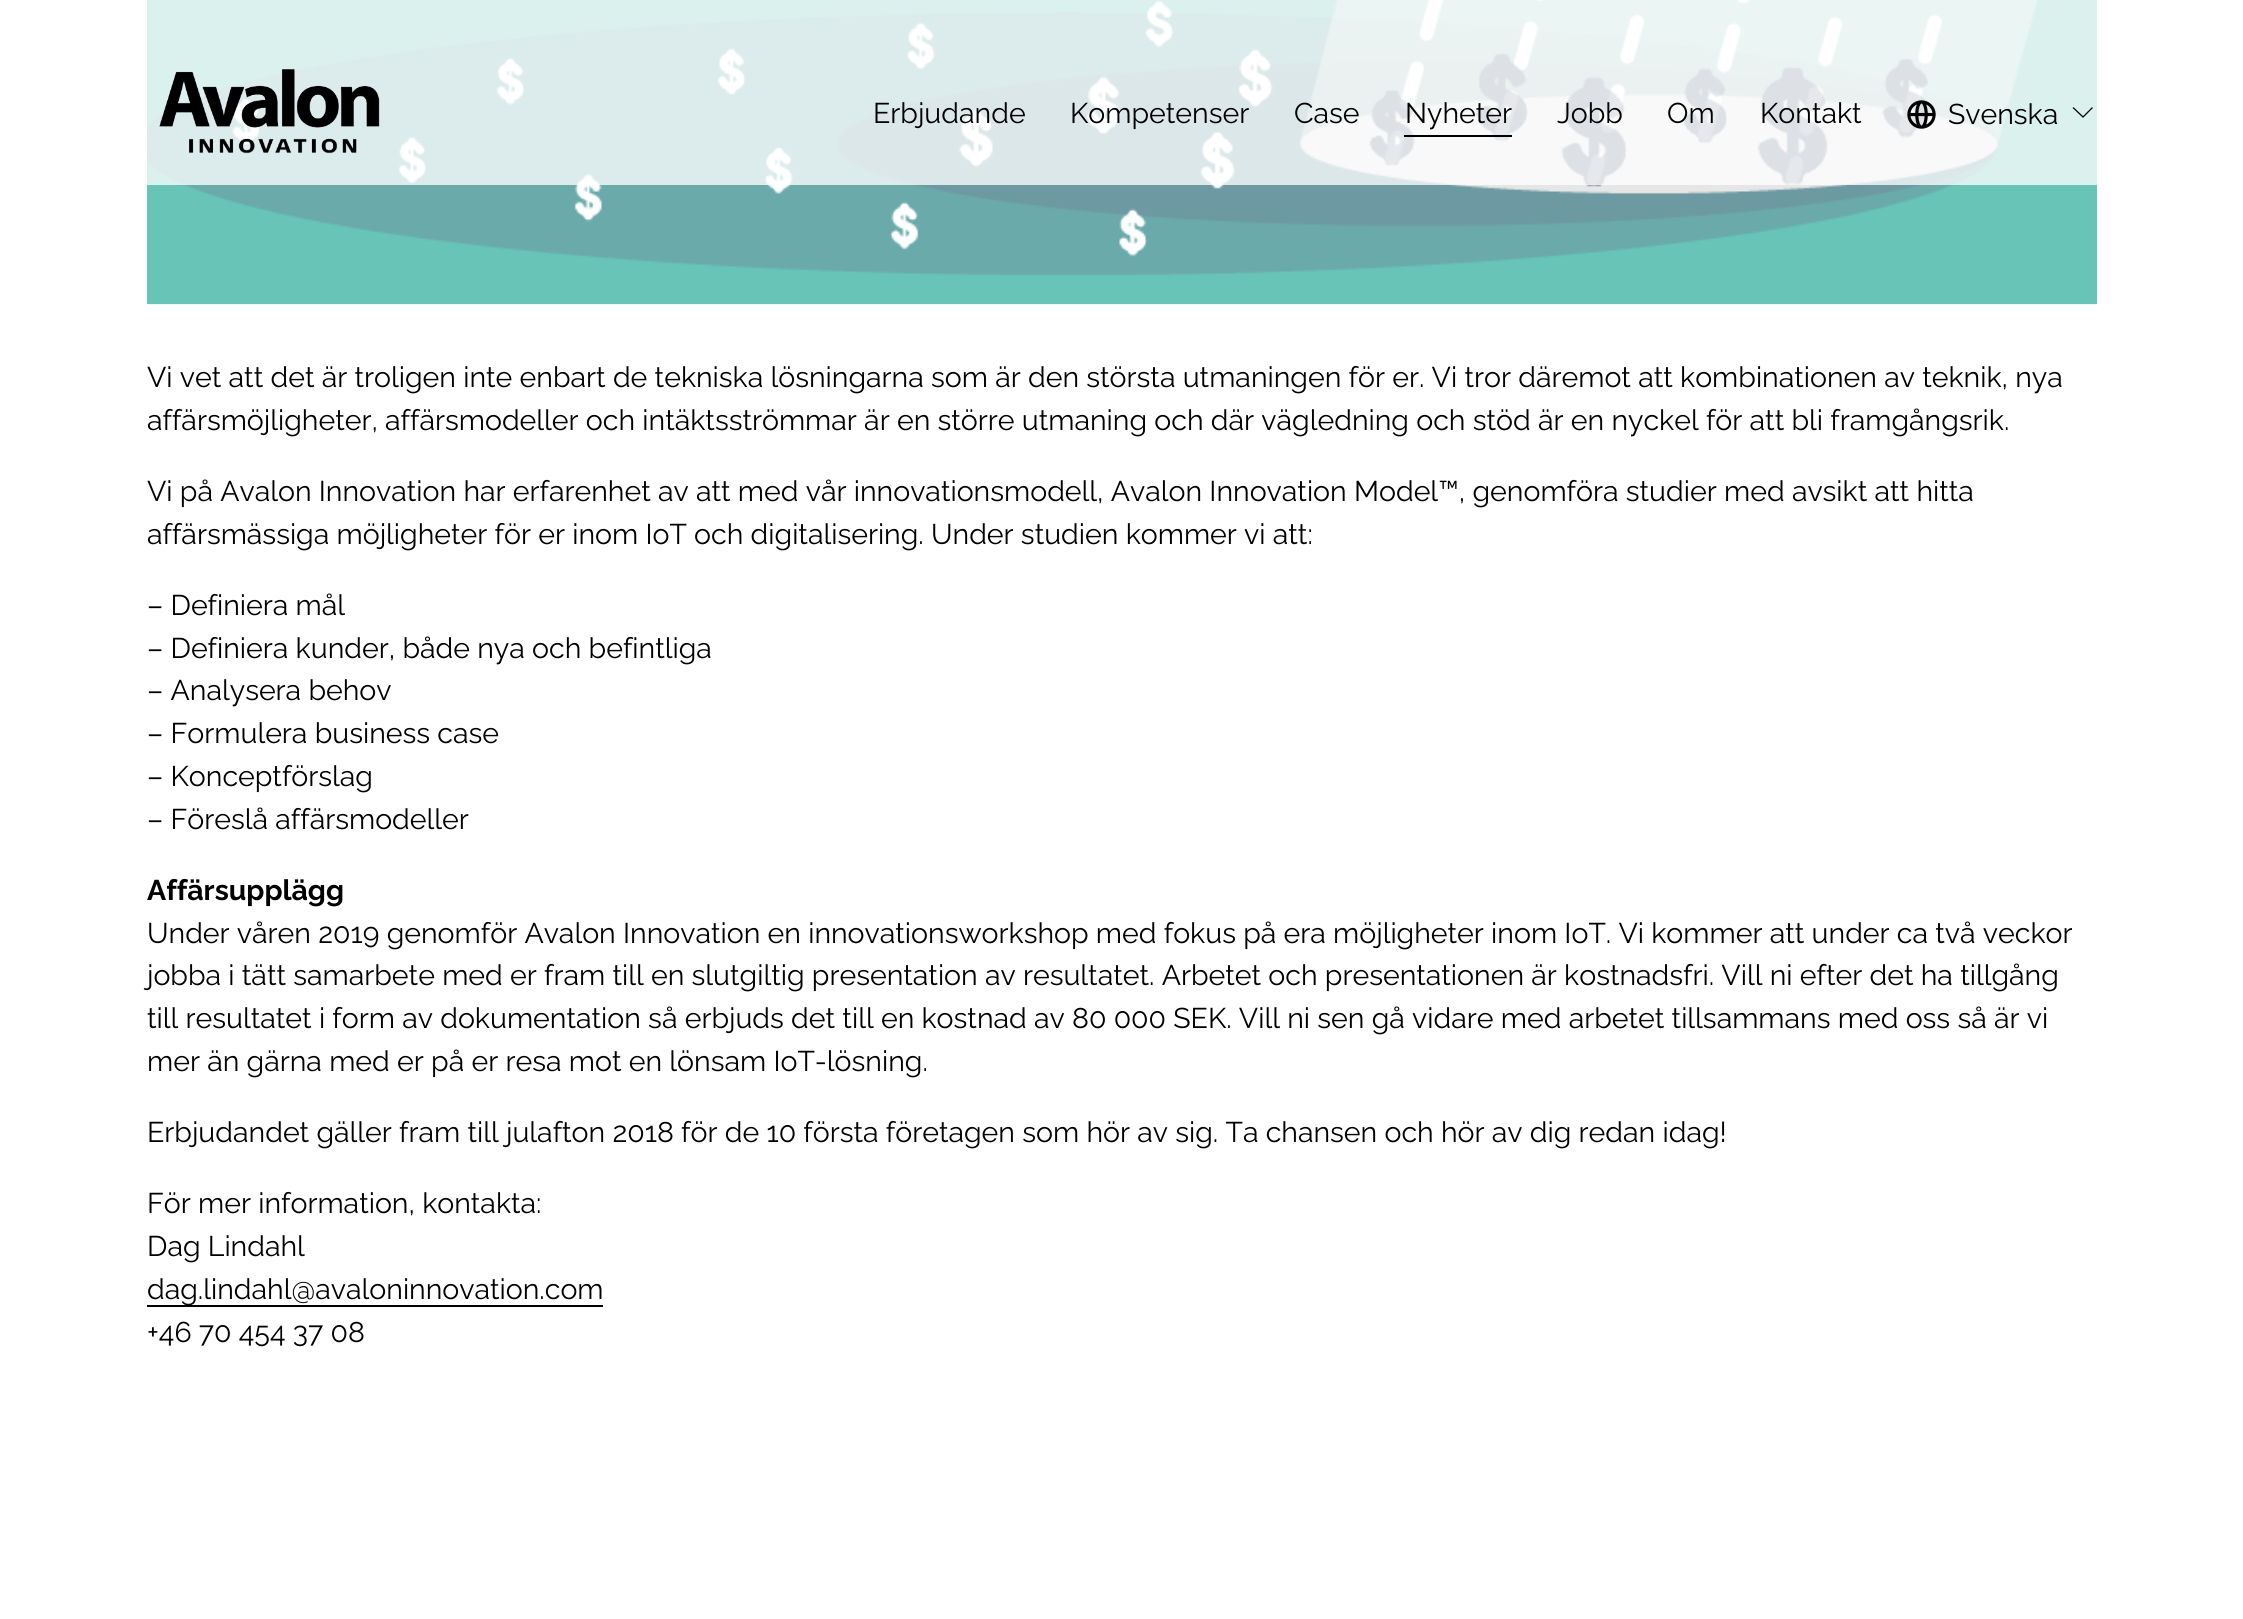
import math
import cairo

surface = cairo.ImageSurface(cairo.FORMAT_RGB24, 2243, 1619)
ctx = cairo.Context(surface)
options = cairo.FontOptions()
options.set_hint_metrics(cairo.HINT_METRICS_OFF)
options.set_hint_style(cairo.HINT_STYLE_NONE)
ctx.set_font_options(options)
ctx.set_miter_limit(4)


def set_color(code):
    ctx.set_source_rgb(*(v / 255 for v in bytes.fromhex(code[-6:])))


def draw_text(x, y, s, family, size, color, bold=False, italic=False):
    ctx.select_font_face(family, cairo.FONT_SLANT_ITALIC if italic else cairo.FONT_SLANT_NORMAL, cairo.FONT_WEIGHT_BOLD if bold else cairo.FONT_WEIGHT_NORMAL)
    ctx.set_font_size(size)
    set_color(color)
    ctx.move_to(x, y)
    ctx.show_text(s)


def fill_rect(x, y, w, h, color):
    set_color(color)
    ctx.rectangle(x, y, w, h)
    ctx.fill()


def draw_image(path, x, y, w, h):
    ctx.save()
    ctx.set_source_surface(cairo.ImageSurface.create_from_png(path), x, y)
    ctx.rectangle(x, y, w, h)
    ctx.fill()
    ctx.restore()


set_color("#ffffff")
ctx.paint()
draw_image("assets/img3.png", 147, 0, 1950, 305)
ctx.set_source_rgba(1, 1, 1, 0.76)
ctx.rectangle(147, 0, 1950, 185)
ctx.fill()
draw_image("assets/img1.png", 159, 69, 221, 85)
draw_text(873, 123, "Erbjudande", "Raleway", 28.5, "#000000")
draw_text(1070, 123, "Kompetenser", "Raleway", 28.5, "#000000")
draw_text(1294, 123, "Case", "Raleway", 28.5, "#000000")
fill_rect(1404, 135, 108, 2, "#000000")
draw_text(1405, 123, "Nyheter", "Raleway", 28.5, "#000000")
draw_text(1557, 123, "Jobb", "Raleway", 28.5, "#000000")
draw_text(1667, 123, "Om", "Raleway", 28.5, "#000000")
draw_text(1760, 123, "Kontakt", "Raleway", 28.5, "#000000")
draw_image("assets/img2.png", 1907, 100, 29, 29)
draw_text(1948, 124, "Svenska", "Raleway", 28.5, "#000000")
ctx.new_path()
ctx.move_to(2092, 108)
ctx.line_to(2083, 117)
ctx.line_to(2073.5, 108)
ctx.set_line_width(1.3)
ctx.set_line_cap(cairo.LINE_CAP_SQUARE)
ctx.stroke()
draw_text(147, 387, "Vi vet att det är troligen inte enbart de tekniska lösningarna som är den största utmaningen för er. Vi tror däremot att kombinationen av teknik, nya", "Raleway", 28.5, "#000000")
draw_text(147, 430, "affärsmöjligheter, affärsmodeller och intäktsströmmar är en större utmaning och där vägledning och stöd är en nyckel för att bli framgångsrik.", "Raleway", 28.5, "#000000")
draw_text(147, 501, "Vi på Avalon Innovation har erfarenhet av att med vår innovationsmodell, Avalon Innovation Model™, genomföra studier med avsikt att hitta", "Raleway", 28.5, "#000000")
draw_text(147, 544, "affärsmässiga möjligheter för er inom IoT och digitalisering. Under studien kommer vi att:", "Raleway", 28.5, "#000000")
draw_text(147, 615, "– Definiera mål", "Raleway", 28.5, "#000000")
draw_text(147, 658, "– Definiera kunder, både nya och befintliga", "Raleway", 28.5, "#000000")
draw_text(147, 700, "– Analysera behov", "Raleway", 28.5, "#000000")
draw_text(147, 743, "– Formulera business case", "Raleway", 28.5, "#000000")
draw_text(147, 786, "– Konceptförslag", "Raleway", 28.5, "#000000")
draw_text(147, 829, "– Föreslå affärsmodeller", "Raleway", 28.5, "#000000")
draw_text(147, 900, "Affärsupplägg", "Raleway", 28.5, "#000000", bold=True)
draw_text(147, 943, "Under våren 2019 genomför Avalon Innovation en innovationsworkshop med fokus på era möjligheter inom IoT. Vi kommer att under ca två veckor", "Raleway", 28.5, "#000000")
draw_text(147, 985, "jobba i tätt samarbete med er fram till en slutgiltig presentation av resultatet. Arbetet och presentationen är kostnadsfri. Vill ni efter det ha tillgång", "Raleway", 28.5, "#000000")
draw_text(147, 1028, "till resultatet i form av dokumentation så erbjuds det till en kostnad av 80 000 SEK. Vill ni sen gå vidare med arbetet tillsammans med oss så är vi", "Raleway", 28.5, "#000000")
draw_text(147, 1071, "mer än gärna med er på er resa mot en lönsam IoT-lösning.", "Raleway", 28.5, "#000000")
draw_text(147, 1142, "Erbjudandet gäller fram till julafton 2018 för de 10 första företagen som hör av sig. Ta chansen och hör av dig redan idag!", "Raleway", 28.5, "#000000")
draw_text(147, 1213, "För mer information, kontakta:", "Raleway", 28.5, "#000000")
draw_text(147, 1256, "Dag Lindahl", "Raleway", 28.5, "#000000")
fill_rect(147, 1305, 456, 2, "#000000")
draw_text(147, 1299, "dag.lindahl@avaloninnovation.com", "Raleway", 28.5, "#000000")
draw_text(147, 1342, "+46 70 454 37 08", "Raleway", 28.5, "#000000")
surface.write_to_png("output.png")
